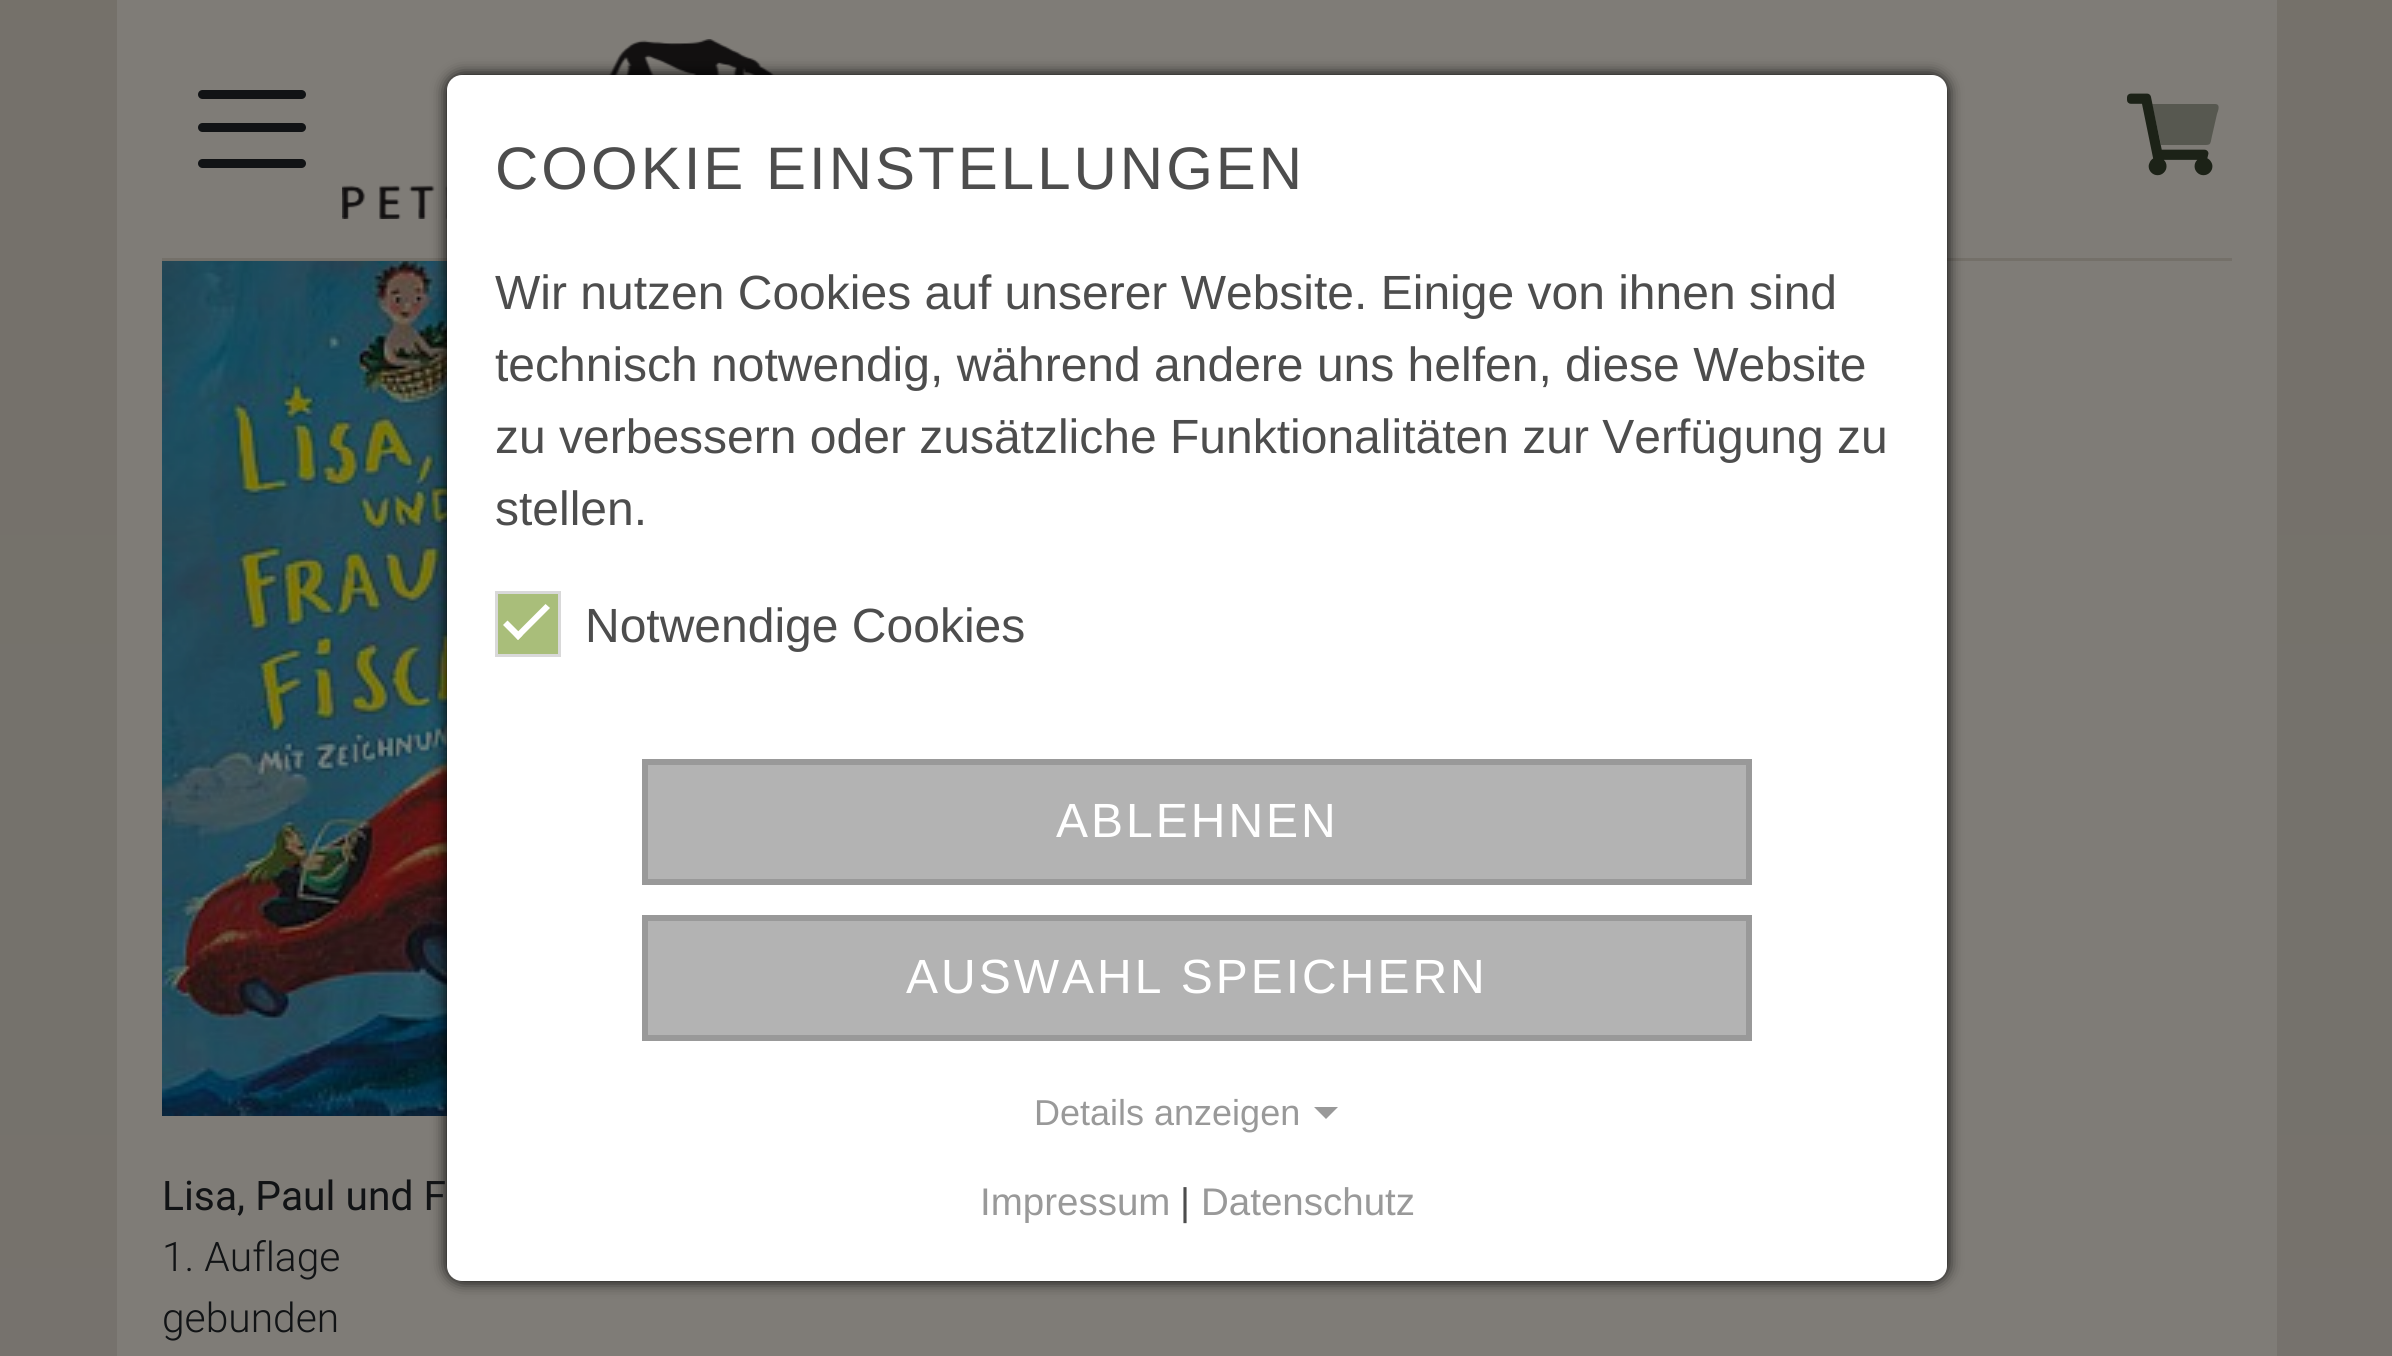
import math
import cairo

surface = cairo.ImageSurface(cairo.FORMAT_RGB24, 2392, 1356)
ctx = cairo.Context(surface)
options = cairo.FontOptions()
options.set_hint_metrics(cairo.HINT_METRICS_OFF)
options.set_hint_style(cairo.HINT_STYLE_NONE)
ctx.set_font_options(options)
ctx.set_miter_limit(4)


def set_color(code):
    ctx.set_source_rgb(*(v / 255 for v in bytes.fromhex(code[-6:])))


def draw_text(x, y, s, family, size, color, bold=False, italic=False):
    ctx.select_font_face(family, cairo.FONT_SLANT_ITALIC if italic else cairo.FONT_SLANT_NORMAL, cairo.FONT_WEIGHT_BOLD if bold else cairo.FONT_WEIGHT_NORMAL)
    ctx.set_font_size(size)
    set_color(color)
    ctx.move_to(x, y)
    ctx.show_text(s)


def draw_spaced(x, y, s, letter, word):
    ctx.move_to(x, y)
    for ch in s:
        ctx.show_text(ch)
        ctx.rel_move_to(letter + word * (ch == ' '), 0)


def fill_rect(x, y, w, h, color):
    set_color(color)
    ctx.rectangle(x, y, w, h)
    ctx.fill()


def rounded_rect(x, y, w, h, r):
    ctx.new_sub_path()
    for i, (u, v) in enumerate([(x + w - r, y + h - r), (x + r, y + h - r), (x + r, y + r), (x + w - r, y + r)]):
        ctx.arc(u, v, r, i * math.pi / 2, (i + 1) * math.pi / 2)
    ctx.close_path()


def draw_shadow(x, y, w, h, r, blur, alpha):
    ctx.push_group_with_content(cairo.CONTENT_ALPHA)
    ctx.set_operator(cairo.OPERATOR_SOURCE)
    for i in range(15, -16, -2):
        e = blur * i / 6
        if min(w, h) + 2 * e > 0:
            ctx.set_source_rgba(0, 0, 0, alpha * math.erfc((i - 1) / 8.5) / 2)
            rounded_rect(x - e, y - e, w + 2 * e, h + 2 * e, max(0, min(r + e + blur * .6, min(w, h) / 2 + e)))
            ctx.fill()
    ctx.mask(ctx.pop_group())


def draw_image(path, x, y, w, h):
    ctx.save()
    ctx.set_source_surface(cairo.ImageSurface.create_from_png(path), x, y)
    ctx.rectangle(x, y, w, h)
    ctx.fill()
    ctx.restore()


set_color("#ffffff")
ctx.paint()
gradient = cairo.LinearGradient(1197, -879, 1197, 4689)
gradient.add_color_stop_rgba(0, 0.455, 0.439, 0.412, 1)
gradient.add_color_stop_rgba(1, 0.471, 0.463, 0.447, 1)
ctx.set_source(gradient)
ctx.rectangle(0, 0, 2392, 1356)
ctx.fill()
fill_rect(117, 0, 2160, 1356, "#7f7c77")
fill_rect(162, 258, 2070, 3, "#747069")
draw_image("assets/img1.png", 342, 39, 433, 180)
draw_image("assets/img3.png", 162, 261, 285, 855)
set_color("#000000")
draw_shadow(447, 75, 1500, 1206, 15, 7.5, 1)
set_color("#ffffff")
rounded_rect(447, 75, 1500, 1206, 15)
ctx.fill()
ctx.select_font_face("Liberation Sans")
ctx.set_font_size(60)
set_color("#4d4d4d")
draw_spaced(495, 189, "COOKIE EINSTELLUNGEN", 3, 0)
draw_text(495, 309, "Wir nutzen Cookies auf unserer Website. Einige von ihnen sind", "Liberation Sans", 48, "#4d4d4d")
draw_text(495, 381, "technisch notwendig, während andere uns helfen, diese Website", "Liberation Sans", 48, "#4d4d4d")
draw_text(495, 453, "zu verbessern oder zusätzliche Funktionalitäten zur Verfügung zu", "Liberation Sans", 48, "#4d4d4d")
draw_text(495, 525, "stellen.", "Liberation Sans", 48, "#4d4d4d")
set_color("#a9be7a")
ctx.rectangle(496.5, 592.5, 63, 63)
ctx.fill_preserve()
set_color("#d9d9d9")
ctx.set_line_width(3)
ctx.stroke()
set_color("#ffffff")
ctx.new_path()
ctx.move_to(545.5, 604)
ctx.line_to(550, 608)
ctx.line_to(518, 640)
ctx.line_to(514, 635.5)
ctx.close_path()
ctx.fill()
ctx.new_path()
ctx.move_to(507.5, 620.5)
ctx.line_to(522.5, 635.5)
ctx.line_to(518, 640)
ctx.line_to(503, 625)
ctx.close_path()
ctx.fill()
draw_text(585, 642, "Notwendige Cookies", "Liberation Sans", 48, "#4d4d4d")
set_color("#b3b3b3")
ctx.rectangle(645, 762, 1104, 120)
ctx.fill_preserve()
set_color("#999999")
ctx.set_line_width(6)
ctx.stroke()
set_color("#ffffff")
draw_spaced(1056, 837, "ABLEHNEN", 3, 0)
set_color("#b3b3b3")
ctx.rectangle(645, 918, 1104, 120)
ctx.fill_preserve()
set_color("#999999")
ctx.stroke()
set_color("#ffffff")
draw_spaced(906, 993, "AUSWAHL SPEICHERN", 3, 0)
draw_text(1034, 1125, "Details anzeigen", "Liberation Sans", 36, "#999999")
ctx.new_path()
ctx.move_to(1314, 1107)
ctx.line_to(1338, 1107)
ctx.line_to(1326, 1119)
ctx.close_path()
ctx.fill()
draw_text(980, 1215, "Impressum", "Liberation Sans", 38.5, "#999999")
draw_text(1180, 1215, "|", "Liberation Sans", 38.5, "#4d4d4d")
draw_text(1201, 1215, "Datenschutz", "Liberation Sans", 38.5, "#999999")
set_color("#111315")
rounded_rect(198, 90, 108, 9, 4.5)
ctx.fill()
rounded_rect(198, 123, 108, 9, 4.5)
ctx.fill()
rounded_rect(198, 159, 108, 9, 4.5)
ctx.fill()
draw_image("assets/img2.png", 2127, 93, 86, 83)
ctx.set_source_rgba(0.11, 0.137, 0.09, 0.4)
ctx.new_path()
ctx.move_to(2215, 104)
ctx.curve_to(2221, 104, 2218, 111, 2217, 114)
ctx.line_to(2212, 136)
ctx.curve_to(2210, 146, 2211, 145, 2200, 145)
ctx.line_to(2161, 145)
ctx.line_to(2152, 104)
ctx.close_path()
ctx.fill()
draw_text(162, 1210, "Lisa, Paul und F", "Roboto", 40.75, "#111315")
draw_text(162, 1271, "1. Auflage", "Roboto Light", 40.75, "#111315")
draw_text(162, 1332, "gebunden", "Roboto Light", 40.75, "#111315")
surface.write_to_png("output.png")
